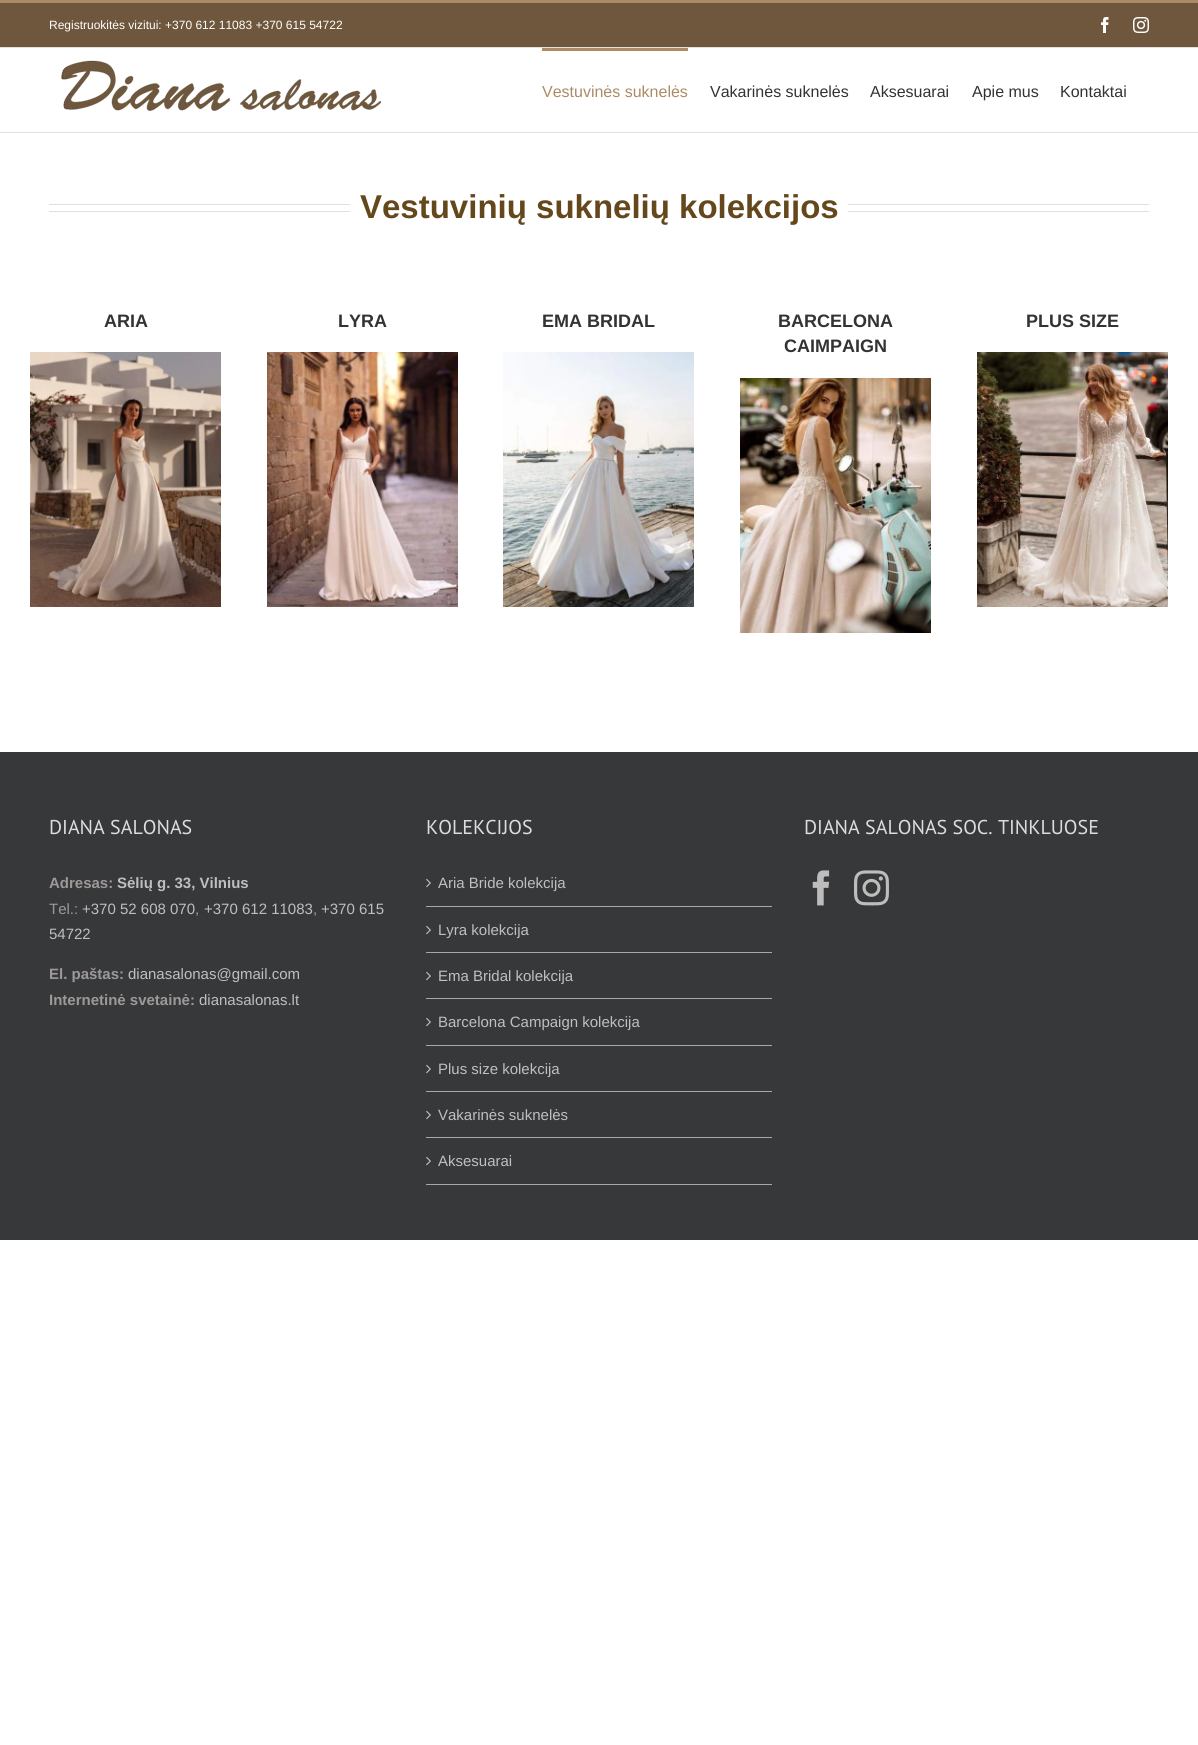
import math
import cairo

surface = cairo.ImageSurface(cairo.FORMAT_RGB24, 1198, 1745)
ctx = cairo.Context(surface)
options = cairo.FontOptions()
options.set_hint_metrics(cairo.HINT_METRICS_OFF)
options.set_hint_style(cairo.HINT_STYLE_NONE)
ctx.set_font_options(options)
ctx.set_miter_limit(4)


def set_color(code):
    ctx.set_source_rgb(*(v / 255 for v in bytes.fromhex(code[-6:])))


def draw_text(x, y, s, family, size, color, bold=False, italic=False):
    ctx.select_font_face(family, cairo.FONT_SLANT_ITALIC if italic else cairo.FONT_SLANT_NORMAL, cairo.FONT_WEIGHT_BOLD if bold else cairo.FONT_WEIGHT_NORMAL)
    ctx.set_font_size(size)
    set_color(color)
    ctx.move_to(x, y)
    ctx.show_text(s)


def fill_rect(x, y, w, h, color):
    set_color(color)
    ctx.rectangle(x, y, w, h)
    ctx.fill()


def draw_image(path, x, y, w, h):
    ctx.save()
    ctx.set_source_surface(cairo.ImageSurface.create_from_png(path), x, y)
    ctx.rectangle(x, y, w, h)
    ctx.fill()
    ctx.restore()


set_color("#ffffff")
ctx.paint()
fill_rect(0, 3, 1198, 44, "#6f573d")
fill_rect(0, 0, 1198, 3, "#ab8b65")
fill_rect(0, 47, 1198, 1, "#e1e1e1")
draw_text(49, 29, "Registruokitės vizitui: +370 612 11083 +370 615 54722", "Liberation Sans", 12, "#ffffff")
draw_image("assets/img1.png", 1101, 17, 8, 16)
draw_image("assets/img2.png", 1133, 17, 16, 16)
fill_rect(0, 132, 1198, 1, "#e1e1e1")
draw_image("assets/img3.png", 61, 60, 321, 51)
fill_rect(542, 48, 146, 3, "#ab8b65")
draw_text(542, 97, "Vestuvinės suknelės", "Liberation Sans", 16, "#ab8b65")
draw_text(710, 97, "Vakarinės suknelės", "Liberation Sans", 16, "#333333")
draw_text(870, 97, "Aksesuarai", "Liberation Sans", 16, "#333333")
draw_text(972, 97, "Apie mus", "Liberation Sans", 16, "#333333")
draw_text(1060, 97, "Kontaktai", "Liberation Sans", 16, "#333333")
fill_rect(49, 204, 301, 1, "#e0dede")
fill_rect(49, 211, 301, 1, "#e0dede")
draw_text(360, 218, "Vestuvinių suknelių kolekcijos", "Liberation Sans", 33, "#65471c", bold=True)
fill_rect(848, 204, 301, 1, "#e0dede")
fill_rect(848, 211, 301, 1, "#e0dede")
draw_text(104, 327, "ARIA", "Liberation Sans", 18, "#333333", bold=True)
draw_image("assets/img4.png", 30, 352, 191, 255)
draw_text(338, 327, "LYRA", "Liberation Sans", 18, "#333333", bold=True)
draw_image("assets/img5.png", 267, 352, 191, 255)
draw_text(542, 327, "EMA BRIDAL", "Liberation Sans", 18, "#333333", bold=True)
draw_image("assets/img6.png", 503, 352, 191, 255)
draw_text(778, 327, "BARCELONA", "Liberation Sans", 18, "#333333", bold=True)
draw_text(784, 352, "CAIMPAIGN", "Liberation Sans", 18, "#333333", bold=True)
draw_image("assets/img7.png", 740, 378, 191, 255)
draw_text(1026, 327, "PLUS SIZE", "Liberation Sans", 18, "#333333", bold=True)
draw_image("assets/img8.png", 977, 352, 191, 255)
fill_rect(0, 752, 1198, 488, "#363839")
draw_text(49, 834, "DIANA SALONAS", "PT Sans", 20, "#dddddd")
draw_text(49, 888, "Adresas:", "Liberation Sans", 15, "#9e9999", bold=True)
draw_text(117, 888, "Sėlių g. 33, Vilnius", "Liberation Sans", 15, "#bfbfbf", bold=True)
draw_text(49, 914, "Tel.:", "Liberation Sans", 15, "#9e9999")
draw_text(82, 914, "+370 52 608 070", "Liberation Sans", 15, "#bfbfbf")
draw_text(195, 914, ",", "Liberation Sans", 15, "#9e9999")
draw_text(204, 914, "+370 612 11083", "Liberation Sans", 15, "#bfbfbf")
draw_text(313, 914, ",", "Liberation Sans", 15, "#9e9999")
draw_text(321, 914, "+370 615", "Liberation Sans", 15, "#bfbfbf")
draw_text(49, 939, "54722", "Liberation Sans", 15, "#bfbfbf")
draw_text(49, 979, "El. paštas:", "Liberation Sans", 15, "#9e9999", bold=True)
draw_text(128, 979, "dianasalonas@gmail.com", "Liberation Sans", 15, "#bfbfbf")
draw_text(49, 1005, "Internetinė svetainė:", "Liberation Sans", 15, "#9e9999", bold=True)
draw_text(199, 1005, "dianasalonas.lt", "Liberation Sans", 15, "#bfbfbf")
draw_text(426, 834, "KOLEKCIJOS", "PT Sans", 20, "#dddddd")
fill_rect(426, 906, 346, 1, "#a3aaa0")
draw_image("assets/img9.png", 426, 878, 5, 10)
draw_text(438, 888, "Aria Bride kolekcija", "Liberation Sans", 15, "#bfbfbf")
fill_rect(426, 952, 346, 1, "#a3aaa0")
draw_image("assets/img9.png", 426, 925, 5, 10)
draw_text(438, 935, "Lyra kolekcija", "Liberation Sans", 15, "#bfbfbf")
fill_rect(426, 998, 346, 1, "#a3aaa0")
draw_image("assets/img9.png", 426, 971, 5, 10)
draw_text(438, 981, "Ema Bridal kolekcija", "Liberation Sans", 15, "#bfbfbf")
fill_rect(426, 1045, 346, 1, "#a3aaa0")
draw_image("assets/img9.png", 426, 1017, 5, 10)
draw_text(438, 1027, "Barcelona Campaign kolekcija", "Liberation Sans", 15, "#bfbfbf")
fill_rect(426, 1091, 346, 1, "#a3aaa0")
draw_image("assets/img9.png", 426, 1064, 5, 10)
draw_text(438, 1074, "Plus size kolekcija", "Liberation Sans", 15, "#bfbfbf")
fill_rect(426, 1137, 346, 1, "#a3aaa0")
draw_image("assets/img9.png", 426, 1110, 5, 10)
draw_text(438, 1120, "Vakarinės suknelės", "Liberation Sans", 15, "#bfbfbf")
fill_rect(426, 1184, 346, 1, "#a3aaa0")
draw_image("assets/img9.png", 426, 1156, 5, 10)
draw_text(438, 1166, "Aksesuarai", "Liberation Sans", 15, "#bfbfbf")
draw_text(804, 834, "DIANA SALONAS SOC. TINKLUOSE", "PT Sans", 20, "#dddddd")
draw_image("assets/img10.png", 812, 870, 18, 36)
draw_image("assets/img11.png", 854, 870, 35, 36)
surface.write_to_png("output.png")
